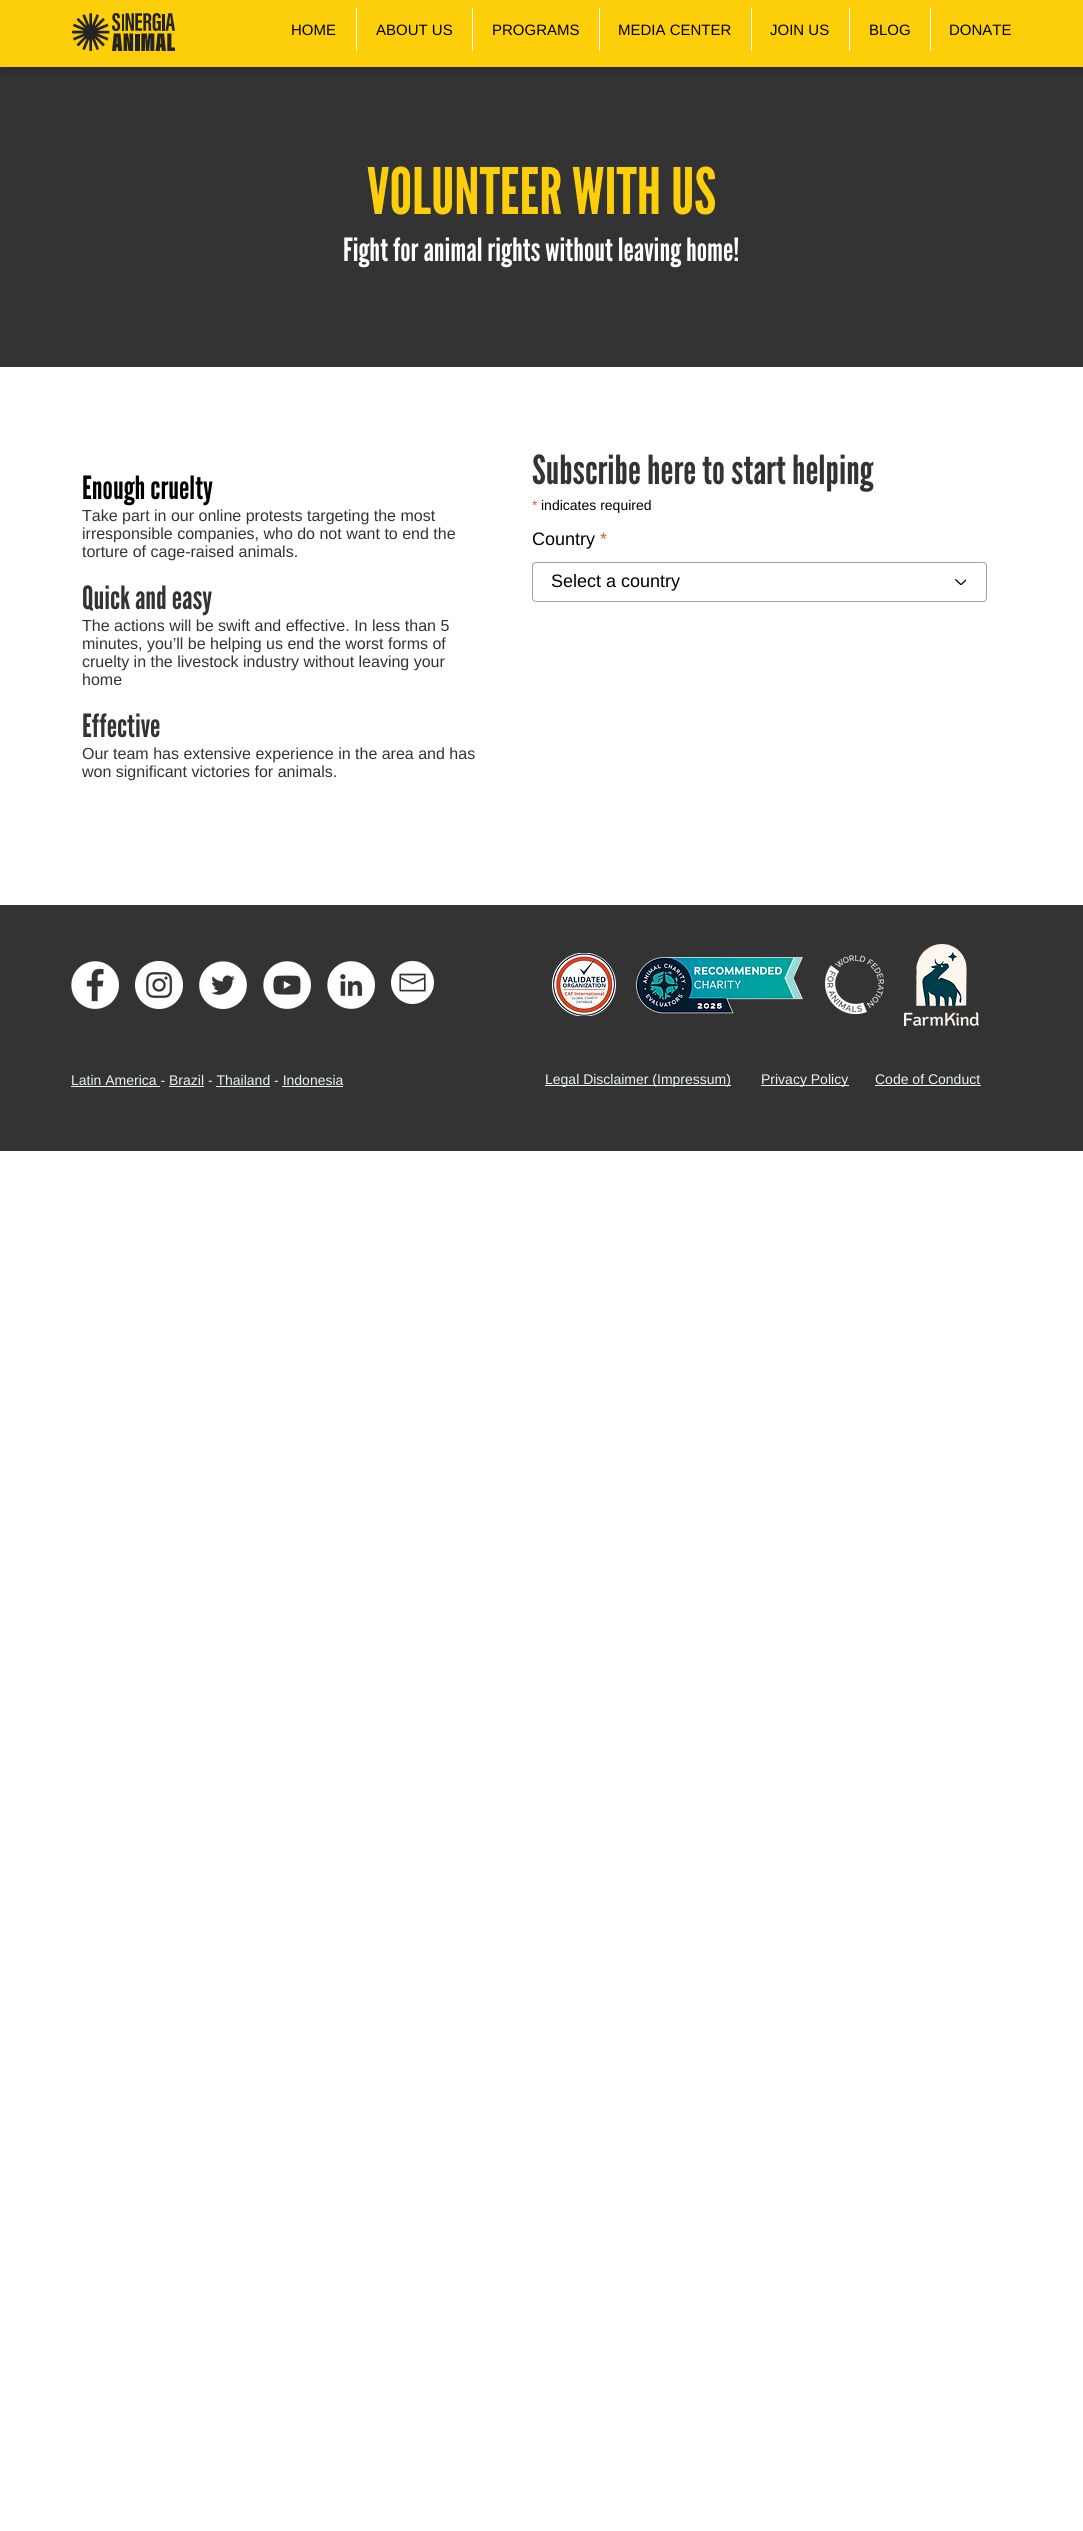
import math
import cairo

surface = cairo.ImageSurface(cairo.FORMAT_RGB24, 1083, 2531)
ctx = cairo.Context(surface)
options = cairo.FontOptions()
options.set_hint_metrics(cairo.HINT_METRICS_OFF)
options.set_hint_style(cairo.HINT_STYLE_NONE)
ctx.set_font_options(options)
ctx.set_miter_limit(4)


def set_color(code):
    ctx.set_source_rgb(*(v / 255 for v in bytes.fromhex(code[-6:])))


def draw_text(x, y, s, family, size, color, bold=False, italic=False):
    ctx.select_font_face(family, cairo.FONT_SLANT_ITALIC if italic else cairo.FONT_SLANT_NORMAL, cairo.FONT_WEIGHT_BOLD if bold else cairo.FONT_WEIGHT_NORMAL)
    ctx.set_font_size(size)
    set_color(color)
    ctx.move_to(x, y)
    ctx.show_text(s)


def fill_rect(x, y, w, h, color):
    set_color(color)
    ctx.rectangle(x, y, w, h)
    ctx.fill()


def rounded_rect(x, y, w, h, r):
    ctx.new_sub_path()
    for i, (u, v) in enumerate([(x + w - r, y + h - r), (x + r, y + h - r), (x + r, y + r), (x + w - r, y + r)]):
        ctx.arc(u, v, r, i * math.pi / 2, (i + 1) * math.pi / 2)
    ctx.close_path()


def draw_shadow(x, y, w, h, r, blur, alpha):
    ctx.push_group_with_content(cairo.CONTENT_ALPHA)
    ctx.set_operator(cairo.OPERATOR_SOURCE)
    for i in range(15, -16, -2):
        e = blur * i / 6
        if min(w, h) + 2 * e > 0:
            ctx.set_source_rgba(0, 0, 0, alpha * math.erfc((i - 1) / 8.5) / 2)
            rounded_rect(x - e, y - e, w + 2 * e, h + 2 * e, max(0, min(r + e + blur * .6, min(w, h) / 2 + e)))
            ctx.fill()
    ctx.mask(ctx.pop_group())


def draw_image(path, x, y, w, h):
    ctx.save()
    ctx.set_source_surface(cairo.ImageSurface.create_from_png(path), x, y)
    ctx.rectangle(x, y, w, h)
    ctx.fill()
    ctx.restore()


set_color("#ffffff")
ctx.paint()
fill_rect(0, 67, 1083, 300, "#333333")
set_color("#000000")
draw_shadow(0, 5, 1083, 67, 0, 5.5, 0.2)
fill_rect(0, 0, 1083, 67, "#fdcf0b")
draw_image("assets/img1.png", 72, 13, 103, 38)
draw_text(291, 35, "HOME", "Arimo", 15, "#000000")
fill_rect(356, 8, 1, 43, "#fefefe")
draw_text(376, 35, "ABOUT US", "Arimo", 15, "#000000")
fill_rect(472, 8, 1, 43, "#fefefe")
draw_text(492, 35, "PROGRAMS", "Arimo", 15, "#000000")
fill_rect(599, 8, 1, 43, "#fefefe")
draw_text(618, 35, "MEDIA CENTER", "Arimo", 15, "#000000")
fill_rect(751, 8, 1, 43, "#fefefe")
draw_text(770, 35, "JOIN US", "Arimo", 15, "#000000")
fill_rect(849, 8, 1, 43, "#fefefe")
draw_text(869, 35, "BLOG", "Arimo", 15, "#000000")
fill_rect(930, 8, 1, 43, "#fefefe")
draw_text(949, 35, "DONATE", "Arimo", 15, "#000000")
draw_text(367, 214, "VOLUNTEER WITH US", "League Gothic", 64, "#fdcf0b")
draw_text(343, 261, "Fight for animal rights without leaving home!", "League Gothic", 32, "#ffffff")
draw_text(82, 499, "Enough cruelty", "League Gothic", 32, "#000000")
draw_text(82, 521, "Take part in our online protests targeting the most", "Arimo", 16, "#333333")
draw_text(82, 539, "irresponsible companies, who do not want to end the", "Arimo", 16, "#333333")
draw_text(82, 557, "torture of cage-raised animals.", "Arimo", 16, "#333333")
draw_text(82, 609, "Quick and easy", "League Gothic", 32, "#333333")
draw_text(82, 631, "The actions will be swift and effective. In less than 5", "Arimo", 16, "#333333")
draw_text(82, 649, "minutes, you’ll be helping us end the worst forms of", "Arimo", 16, "#333333")
draw_text(82, 667, "cruelty in the livestock industry without leaving your", "Arimo", 16, "#333333")
draw_text(82, 685, "home", "Arimo", 16, "#333333")
draw_text(82, 737, "Effective", "League Gothic", 32, "#333333")
draw_text(82, 759, "Our team has extensive experience in the area and has", "Arimo", 16, "#333333")
draw_text(82, 777, "won significant victories for animals.", "Arimo", 16, "#333333")
draw_text(532, 484, "Subscribe here to start helping", "League Gothic", 40, "#333333")
draw_text(532, 510, "*", "Arimo", 14, "#e85c41")
draw_text(541, 510, "indicates required", "Arimo", 14, "#000000")
draw_text(532, 545, "Country", "Arimo", 18, "#000000")
draw_text(600, 545, "*", "Arimo", 18, "#e85c41")
rounded_rect(532.5, 562.5, 454, 39, 3.5)
set_color("#a2a2a2")
ctx.set_line_width(1)
ctx.stroke()
draw_text(551, 587, "Select a country", "Arimo", 18, "#000000")
draw_image("assets/img2.png", 955, 579, 11, 6)
fill_rect(0, 905, 1083, 246, "#333333")
draw_image("assets/img3.png", 71, 961, 48, 48)
draw_image("assets/img4.png", 135, 961, 48, 48)
draw_image("assets/img5.png", 199, 961, 48, 48)
draw_image("assets/img6.png", 263, 961, 48, 48)
draw_image("assets/img7.png", 327, 961, 48, 48)
draw_image("assets/img8.png", 391, 961, 43, 43)
draw_image("assets/img9.png", 552, 953, 64, 63)
draw_image("assets/img10.png", 636, 957, 167, 57)
draw_image("assets/img11.png", 825, 955, 59, 59)
draw_image("assets/img12.png", 904, 944, 75, 82)
draw_text(71, 1085, "Latin America - Brazil - Thailand - Indonesia", "Arimo", 14, "#eaf4f6")
fill_rect(71, 1086, 89, 1, "#eaf4f6")
fill_rect(169, 1086, 35, 1, "#eaf4f6")
fill_rect(216, 1086, 54, 1, "#eaf4f6")
fill_rect(282, 1086, 61, 1, "#eaf4f6")
fill_rect(545, 1085, 186, 1, "#eaf4f6")
draw_text(545, 1084, "Legal Disclaimer (Impressum)", "Arimo", 14, "#eaf4f6")
fill_rect(761, 1085, 88, 1, "#eaf4f6")
draw_text(761, 1084, "Privacy Policy", "Arimo", 14, "#eaf4f6")
draw_text(875, 1084, "Code of Conduct", "Arimo", 14, "#eaf4f6")
fill_rect(875, 1085, 106, 1, "#eaf4f6")
surface.write_to_png("output.png")
